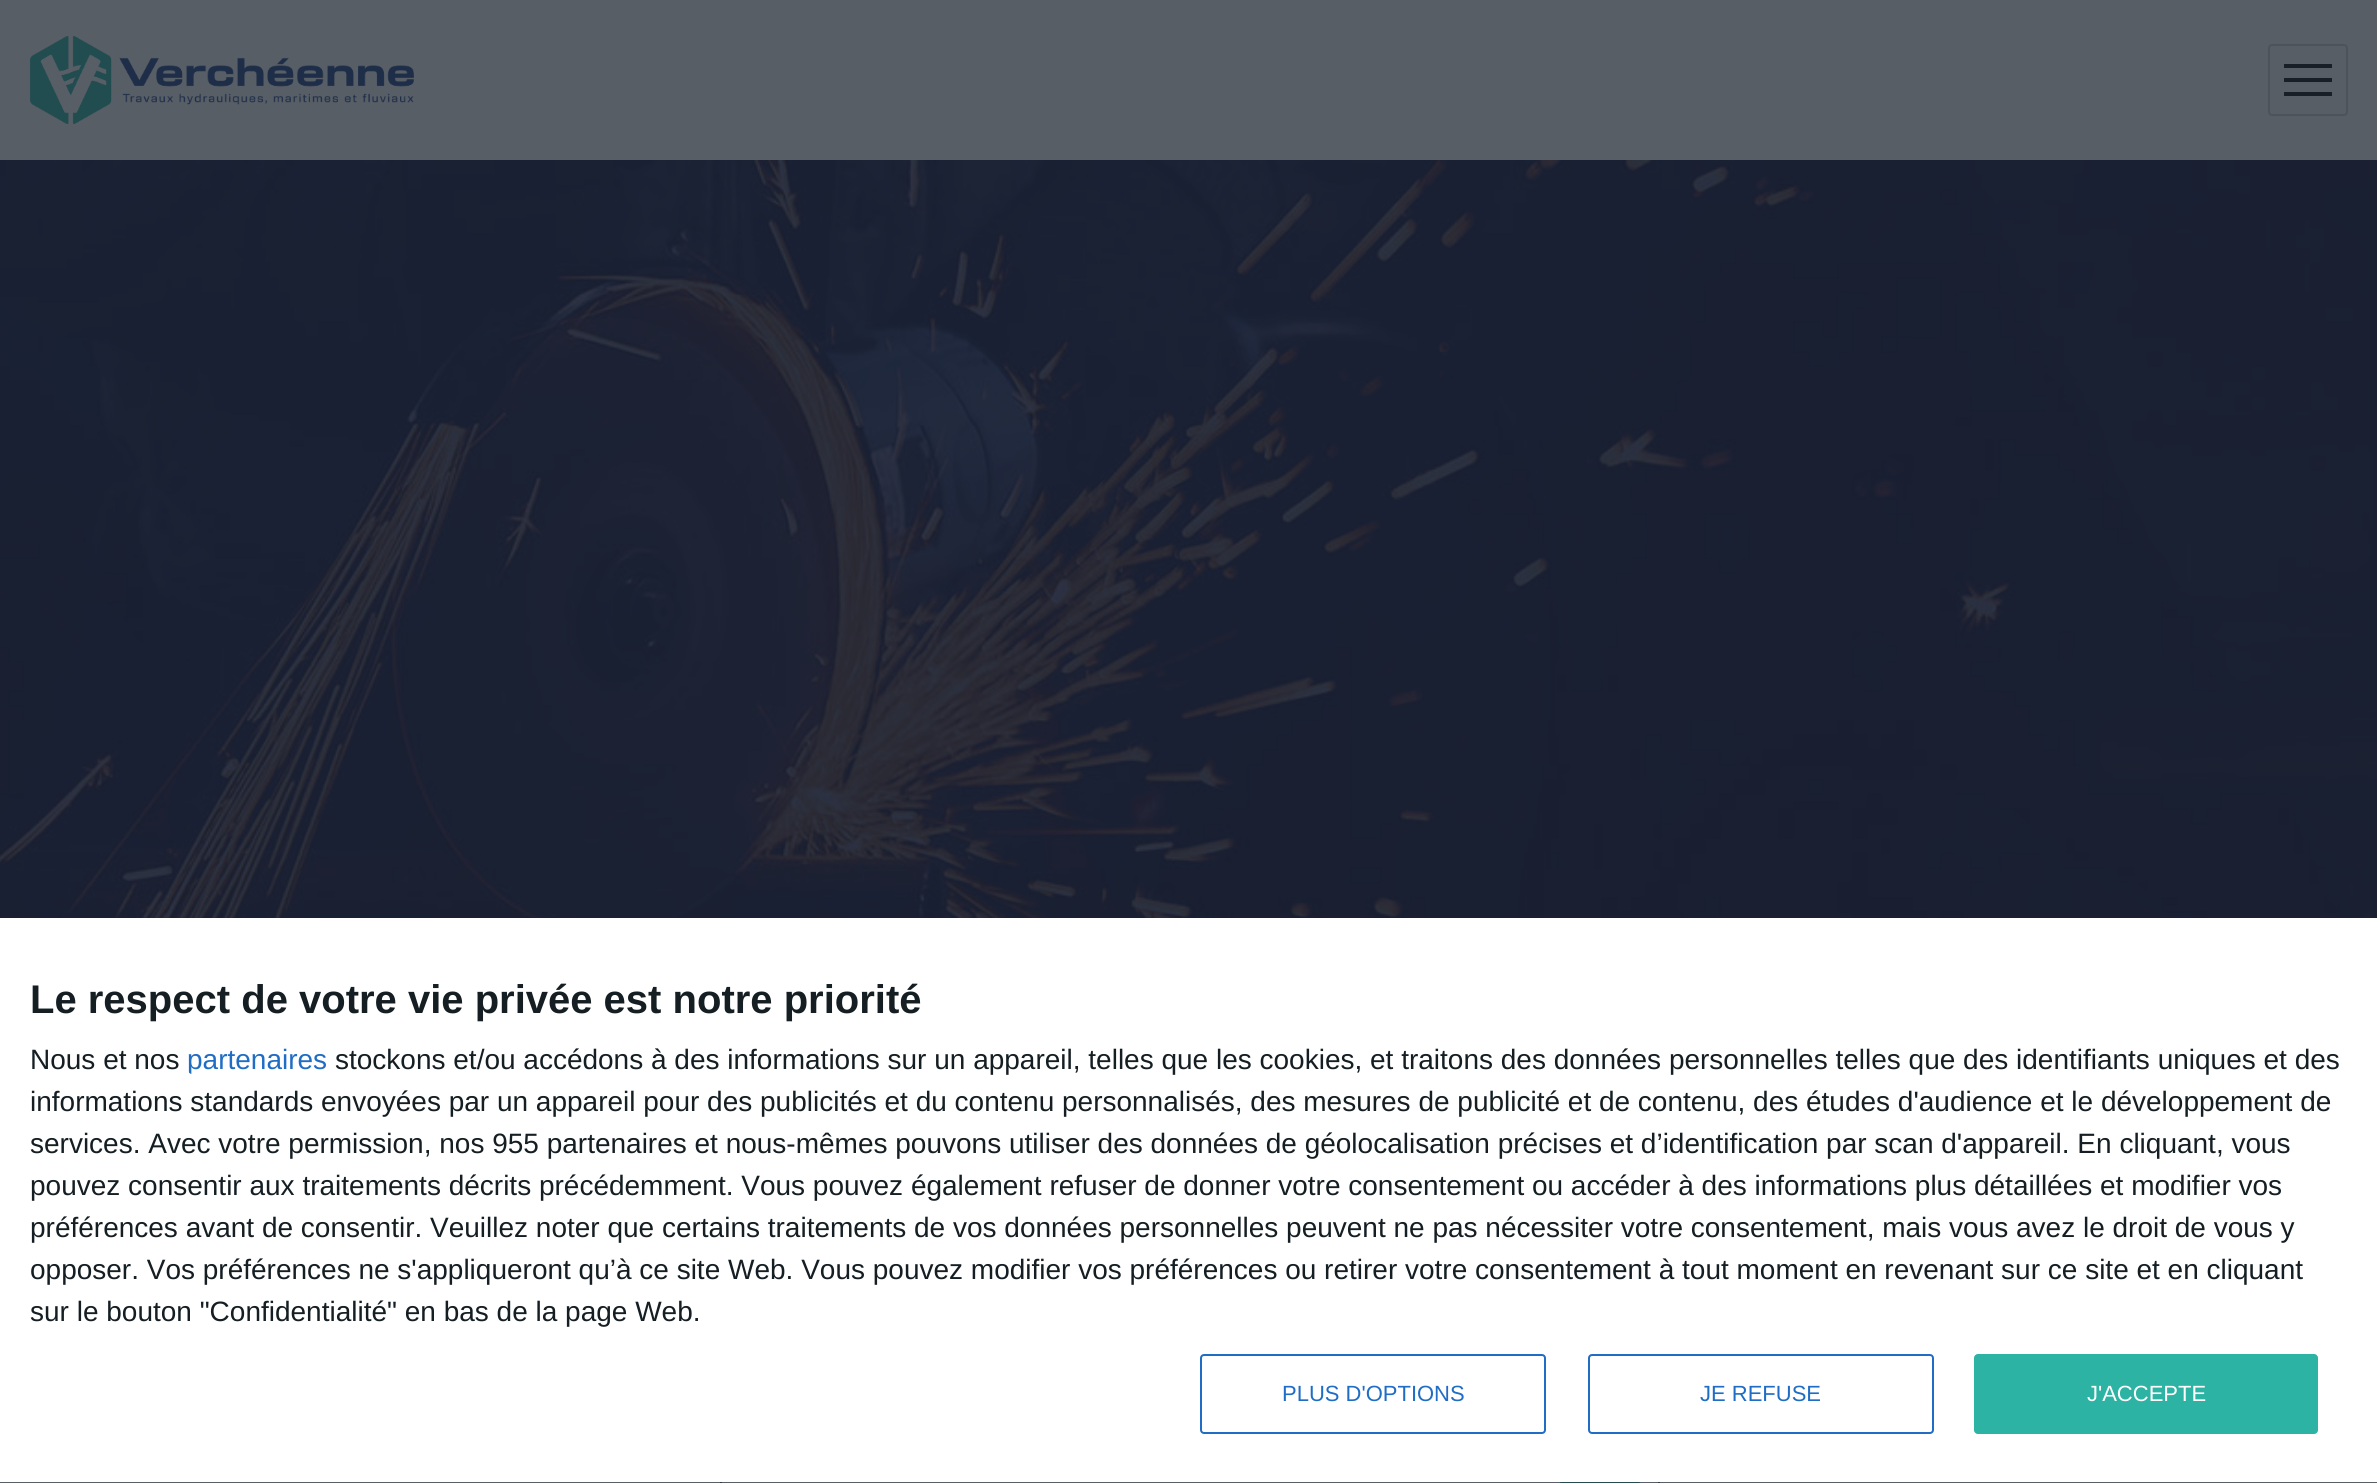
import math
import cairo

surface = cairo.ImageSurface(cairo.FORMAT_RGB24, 2377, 1483)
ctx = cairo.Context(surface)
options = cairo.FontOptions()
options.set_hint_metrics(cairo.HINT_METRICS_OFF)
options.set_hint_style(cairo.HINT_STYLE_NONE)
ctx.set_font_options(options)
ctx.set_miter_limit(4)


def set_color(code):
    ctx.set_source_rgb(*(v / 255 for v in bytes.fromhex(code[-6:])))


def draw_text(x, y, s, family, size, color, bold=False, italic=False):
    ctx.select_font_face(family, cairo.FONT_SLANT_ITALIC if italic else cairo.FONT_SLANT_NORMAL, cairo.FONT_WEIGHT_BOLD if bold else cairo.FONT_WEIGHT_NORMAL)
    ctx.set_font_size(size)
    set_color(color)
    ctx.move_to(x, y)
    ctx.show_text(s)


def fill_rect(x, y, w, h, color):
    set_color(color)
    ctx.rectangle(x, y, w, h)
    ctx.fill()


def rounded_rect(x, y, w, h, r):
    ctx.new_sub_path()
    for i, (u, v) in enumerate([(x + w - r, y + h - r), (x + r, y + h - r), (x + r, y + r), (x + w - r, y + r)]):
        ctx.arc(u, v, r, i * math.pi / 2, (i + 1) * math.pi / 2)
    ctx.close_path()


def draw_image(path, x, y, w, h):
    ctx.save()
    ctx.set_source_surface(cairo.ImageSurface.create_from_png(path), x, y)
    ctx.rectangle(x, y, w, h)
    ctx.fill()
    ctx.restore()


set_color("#585e66")
ctx.paint()
draw_image("assets/img1.png", 30, 36, 384, 88)
rounded_rect(2269, 45, 78, 70, 3)
set_color("#4d535b")
ctx.stroke()
fill_rect(2284, 64, 48, 4, "#191f27")
fill_rect(2284, 78, 48, 4, "#191f27")
fill_rect(2284, 92, 48, 4, "#191f27")
draw_image("assets/img2.png", 0, 160, 2377, 758)
ctx.rectangle(721, 1391, 938, 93)
set_color("#323840")
ctx.stroke()
set_color("#244c50")
rounded_rect(1560, 1410, 80, 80, 10)
ctx.fill()
fill_rect(0, 918, 2377, 564, "#ffffff")
draw_text(30, 1013, "Le respect de votre vie privée est notre priorité", "Liberation Sans", 40, "#141e23", bold=True)
draw_text(30, 1069, "Nous et nos", "Liberation Sans", 28, "#141e23")
ctx.save()
rounded_rect(188, 1046, 140, 28, 4)
ctx.clip()
draw_text(187, 1069, "partenaires", "Liberation Sans", 28, "#206dc5")
ctx.restore()
draw_text(335, 1069, "stockons et/ou accédons à des informations sur un appareil, telles que les cookies, et traitons des données personnelles telles que des identifiants uniques et des", "Liberation Sans", 28, "#141e23")
draw_text(30, 1111, "informations standards envoyées par un appareil pour des publicités et du contenu personnalisés, des mesures de publicité et de contenu, des études d'audience et le développement de", "Liberation Sans", 28, "#141e23")
draw_text(30, 1153, "services. Avec votre permission, nos 955 partenaires et nous-mêmes pouvons utiliser des données de géolocalisation précises et d’identification par scan d'appareil. En cliquant, vous", "Liberation Sans", 28, "#141e23")
draw_text(30, 1195, "pouvez consentir aux traitements décrits précédemment. Vous pouvez également refuser de donner votre consentement ou accéder à des informations plus détaillées et modifier vos", "Liberation Sans", 28, "#141e23")
draw_text(30, 1237, "préférences avant de consentir. Veuillez noter que certains traitements de vos données personnelles peuvent ne pas nécessiter votre consentement, mais vous avez le droit de vous y", "Liberation Sans", 28, "#141e23")
draw_text(30, 1279, "opposer. Vos préférences ne s'appliqueront qu’à ce site Web. Vous pouvez modifier vos préférences ou retirer votre consentement à tout moment en revenant sur ce site et en cliquant", "Liberation Sans", 28, "#141e23")
draw_text(30, 1321, "sur le bouton \"Confidentialité\" en bas de la page Web.", "Liberation Sans", 28, "#141e23")
rounded_rect(1201, 1355, 344, 78, 3)
set_color("#206dc5")
ctx.stroke()
draw_text(1282, 1401, "PLUS D'OPTIONS", "Liberation Sans", 22, "#206dc5")
rounded_rect(1589, 1355, 344, 78, 3)
ctx.stroke()
draw_text(1700, 1401, "JE REFUSE", "Liberation Sans", 22, "#206dc5")
set_color("#2cb3a3")
rounded_rect(1974, 1354, 344, 80, 4)
ctx.fill()
draw_text(2087, 1401, "J'ACCEPTE", "Liberation Sans", 22, "#ffffff")
surface.write_to_png("output.png")
